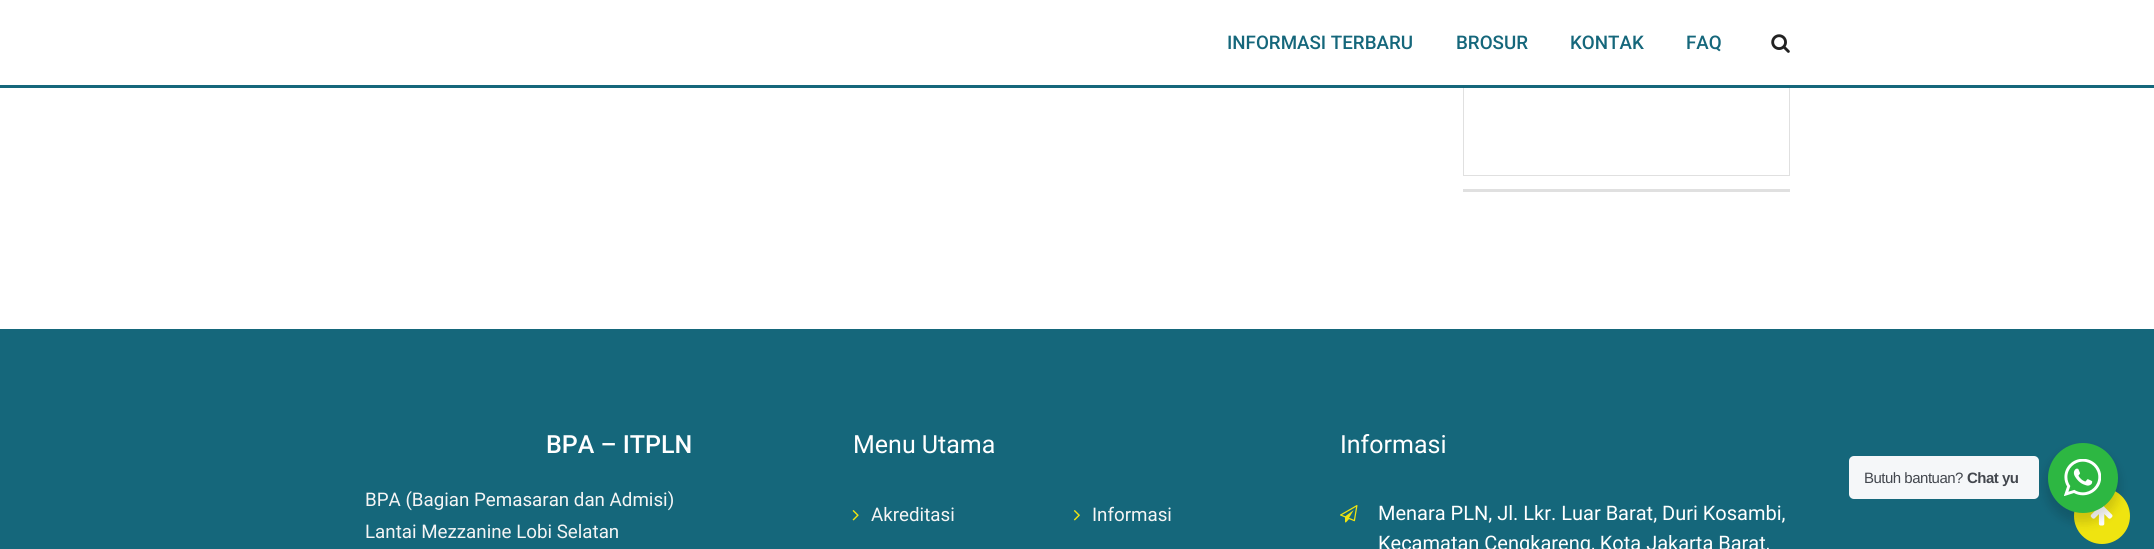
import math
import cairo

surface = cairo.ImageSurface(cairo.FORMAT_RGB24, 2154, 549)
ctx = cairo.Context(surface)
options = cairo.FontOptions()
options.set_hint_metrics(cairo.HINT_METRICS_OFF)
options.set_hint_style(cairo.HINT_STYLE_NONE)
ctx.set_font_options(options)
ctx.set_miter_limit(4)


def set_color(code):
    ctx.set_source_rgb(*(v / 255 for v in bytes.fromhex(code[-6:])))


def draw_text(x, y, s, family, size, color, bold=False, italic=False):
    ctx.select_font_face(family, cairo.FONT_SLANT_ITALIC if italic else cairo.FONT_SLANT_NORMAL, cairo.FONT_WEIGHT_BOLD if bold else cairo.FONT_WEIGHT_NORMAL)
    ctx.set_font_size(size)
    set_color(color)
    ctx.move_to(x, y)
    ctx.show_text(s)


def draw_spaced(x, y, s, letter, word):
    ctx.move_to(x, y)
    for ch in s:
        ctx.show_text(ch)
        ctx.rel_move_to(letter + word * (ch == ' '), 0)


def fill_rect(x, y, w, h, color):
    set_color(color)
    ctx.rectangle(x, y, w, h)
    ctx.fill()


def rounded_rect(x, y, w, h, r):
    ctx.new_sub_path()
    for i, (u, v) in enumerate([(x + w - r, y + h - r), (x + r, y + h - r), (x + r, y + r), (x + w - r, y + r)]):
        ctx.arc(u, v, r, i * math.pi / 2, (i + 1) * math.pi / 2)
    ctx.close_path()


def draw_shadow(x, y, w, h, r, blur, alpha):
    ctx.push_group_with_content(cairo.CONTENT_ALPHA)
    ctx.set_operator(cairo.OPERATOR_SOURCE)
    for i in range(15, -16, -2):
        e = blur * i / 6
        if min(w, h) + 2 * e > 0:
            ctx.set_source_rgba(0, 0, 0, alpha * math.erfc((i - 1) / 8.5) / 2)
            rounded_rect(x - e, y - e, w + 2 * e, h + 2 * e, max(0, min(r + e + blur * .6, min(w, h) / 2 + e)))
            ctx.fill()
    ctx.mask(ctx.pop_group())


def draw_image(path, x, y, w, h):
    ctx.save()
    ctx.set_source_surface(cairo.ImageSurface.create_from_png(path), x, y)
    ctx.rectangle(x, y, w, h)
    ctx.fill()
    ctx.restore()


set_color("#ffffff")
ctx.paint()
ctx.rectangle(1463.5, -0.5, 326, 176)
set_color("#e0e0e0")
ctx.set_line_width(1)
ctx.stroke()
fill_rect(1463, 0, 327, 85, "#ffffff")
fill_rect(0, 85, 2154, 3, "#15677b")
draw_text(1227, 49, "INFORMASI TERBARU", "Roboto Medium", 18.75, "#15677b")
draw_text(1456, 49, "BROSUR", "Roboto Medium", 18.75, "#15677b")
draw_text(1570, 49, "KONTAK", "Roboto Medium", 18.75, "#15677b")
draw_text(1686, 49, "FAQ", "Roboto Medium", 18.75, "#15677b")
draw_image("assets/img1.png", 1771, 34, 19, 19)
fill_rect(1463, 189, 327, 3, "#e0e0e0")
fill_rect(0, 329, 2154, 220, "#15677b")
draw_text(546, 453, "BPA – ITPLN", "Roboto Medium", 25, "#ffffff")
draw_text(365, 506, "BPA (Bagian Pemasaran dan Admisi)", "Roboto", 18.75, "#f5f5f5")
draw_text(365, 538, "Lantai Mezzanine Lobi Selatan", "Roboto", 18.75, "#f5f5f5")
draw_text(853, 453, "Menu Utama", "Roboto", 25, "#ffffff")
draw_image("assets/img2.png", 852, 510, 7, 11)
draw_text(871, 521, "Akreditasi", "Roboto", 18.75, "#f5f5f5")
draw_image("assets/img3.png", 1073, 510, 7, 11)
draw_text(1092, 521, "Informasi", "Roboto", 18.75, "#f5f5f5")
draw_text(1340, 453, "Informasi", "Roboto", 25, "#ffffff")
draw_image("assets/img4.png", 1340, 505, 18, 18)
draw_text(1378, 520, "Menara PLN, Jl. Lkr. Luar Barat, Duri Kosambi,", "Roboto", 20, "#ffffff")
draw_text(1378, 550, "Kecamatan Cengkareng, Kota Jakarta Barat,", "Roboto", 20, "#ffffff")
set_color("#efe410")
ctx.new_path()
ctx.arc(2102, 516, 28, 0, 2 * math.pi)
ctx.fill()
draw_image("assets/img6.png", 2090, 506, 23, 20)
set_color("#000000")
draw_shadow(2045, 448, 75, 75, 37.5, 5, 0.14)
set_color("#f5f7f9")
rounded_rect(1849, 456, 190, 43, 5)
ctx.fill()
ctx.select_font_face("Liberation Sans")
ctx.set_font_size(15)
set_color("#43474e")
draw_spaced(1864, 483, "Butuh bantuan?", -0.5, 0)
ctx.select_font_face("Liberation Sans", cairo.FONT_SLANT_NORMAL, cairo.FONT_WEIGHT_BOLD)
draw_spaced(1967, 483, "Chat yu", -0.5, 0)
set_color("#2db742")
ctx.new_path()
ctx.arc(2083, 478, 35, 0, 2 * math.pi)
ctx.fill()
draw_image("assets/img5.png", 2064, 459, 37, 37)
surface.write_to_png("output.png")
